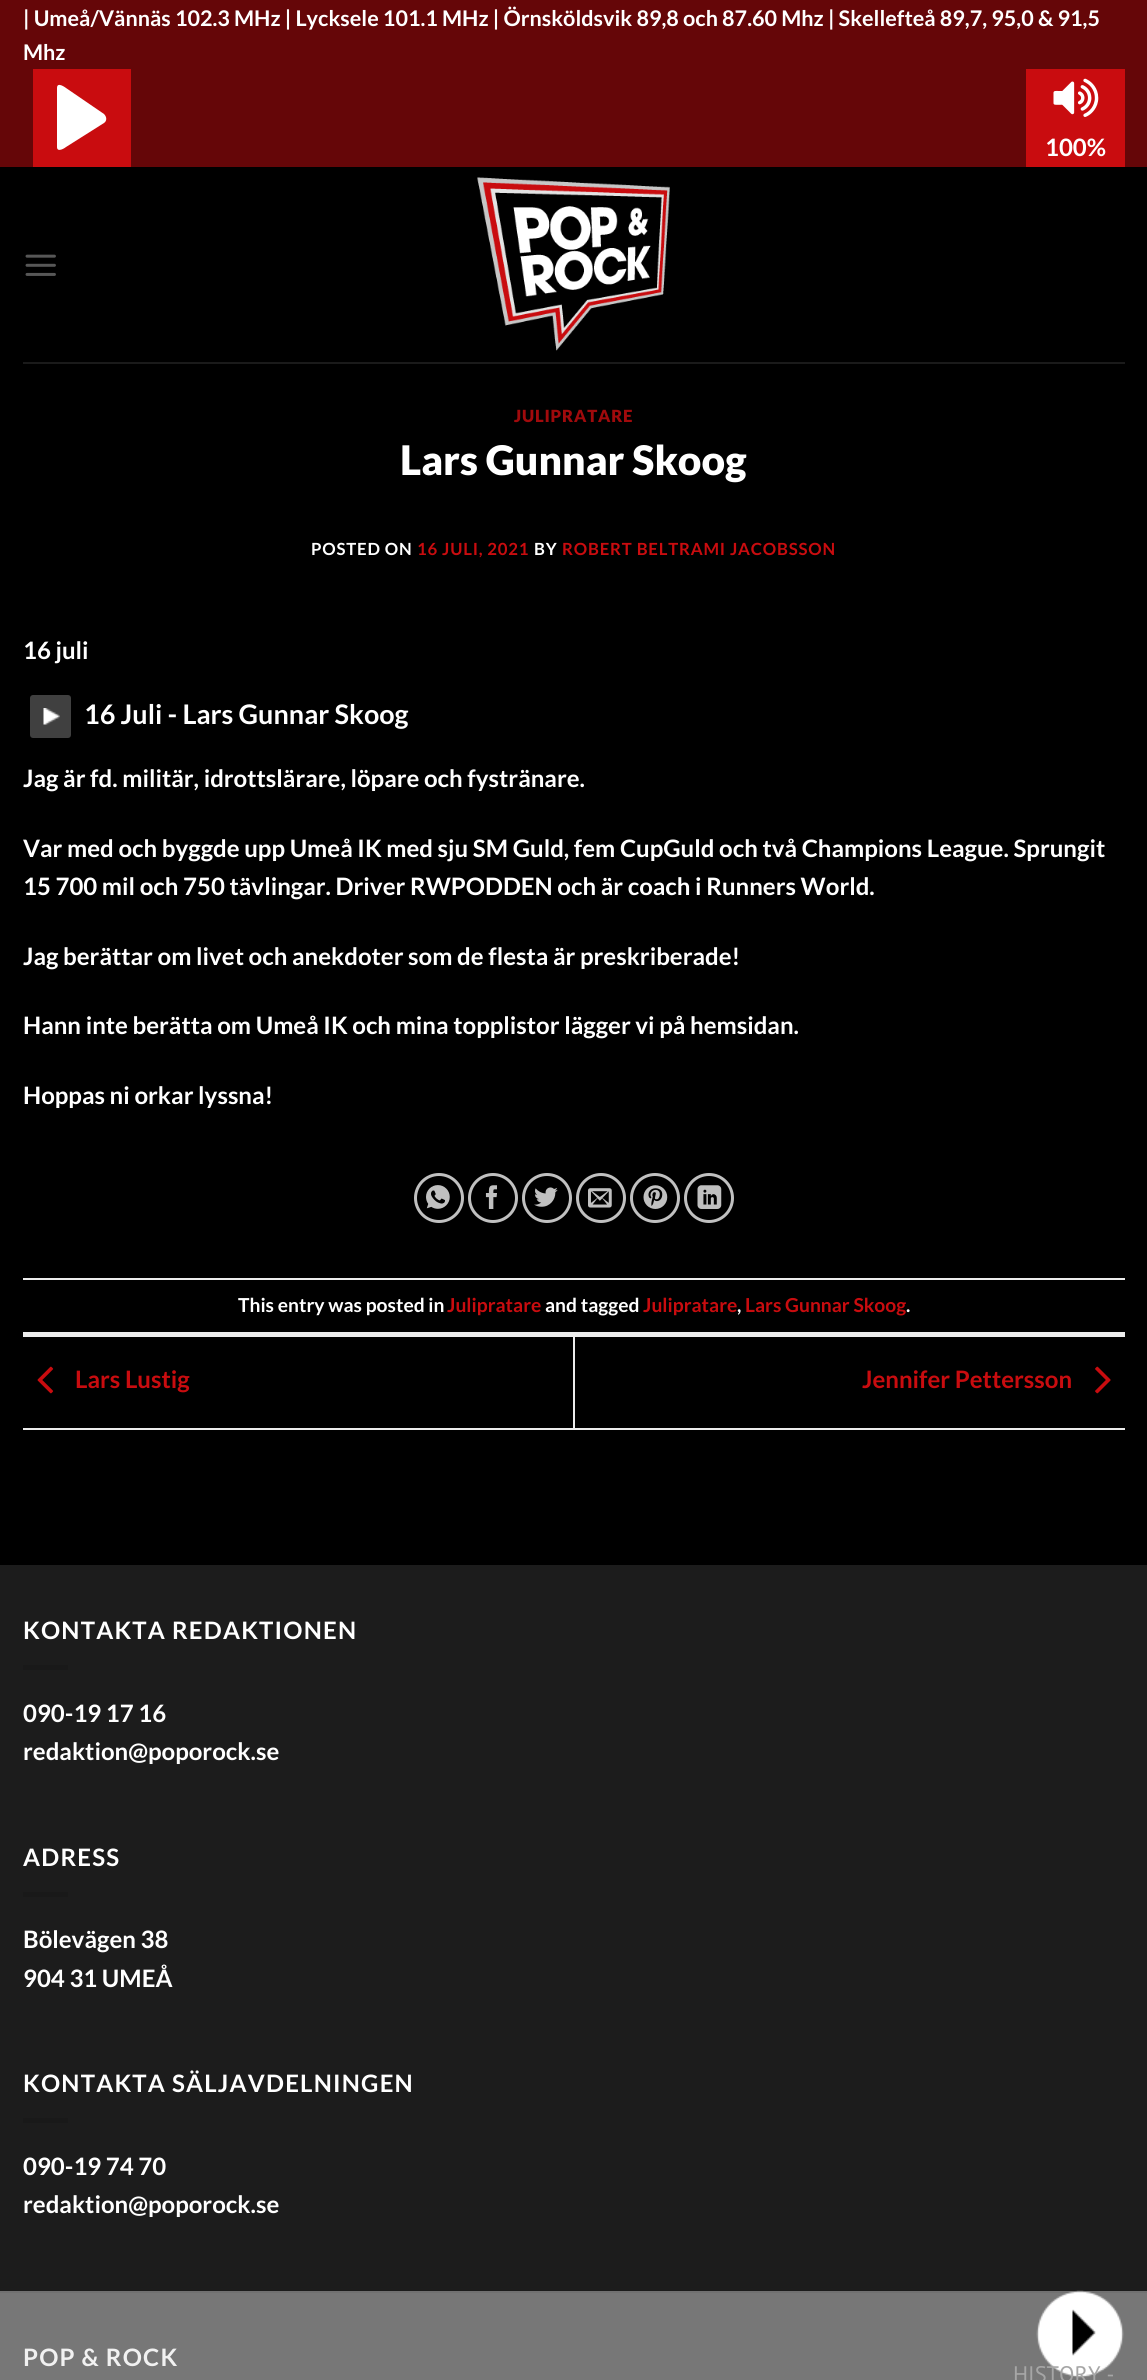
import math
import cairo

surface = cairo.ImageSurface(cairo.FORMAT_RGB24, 1147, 2380)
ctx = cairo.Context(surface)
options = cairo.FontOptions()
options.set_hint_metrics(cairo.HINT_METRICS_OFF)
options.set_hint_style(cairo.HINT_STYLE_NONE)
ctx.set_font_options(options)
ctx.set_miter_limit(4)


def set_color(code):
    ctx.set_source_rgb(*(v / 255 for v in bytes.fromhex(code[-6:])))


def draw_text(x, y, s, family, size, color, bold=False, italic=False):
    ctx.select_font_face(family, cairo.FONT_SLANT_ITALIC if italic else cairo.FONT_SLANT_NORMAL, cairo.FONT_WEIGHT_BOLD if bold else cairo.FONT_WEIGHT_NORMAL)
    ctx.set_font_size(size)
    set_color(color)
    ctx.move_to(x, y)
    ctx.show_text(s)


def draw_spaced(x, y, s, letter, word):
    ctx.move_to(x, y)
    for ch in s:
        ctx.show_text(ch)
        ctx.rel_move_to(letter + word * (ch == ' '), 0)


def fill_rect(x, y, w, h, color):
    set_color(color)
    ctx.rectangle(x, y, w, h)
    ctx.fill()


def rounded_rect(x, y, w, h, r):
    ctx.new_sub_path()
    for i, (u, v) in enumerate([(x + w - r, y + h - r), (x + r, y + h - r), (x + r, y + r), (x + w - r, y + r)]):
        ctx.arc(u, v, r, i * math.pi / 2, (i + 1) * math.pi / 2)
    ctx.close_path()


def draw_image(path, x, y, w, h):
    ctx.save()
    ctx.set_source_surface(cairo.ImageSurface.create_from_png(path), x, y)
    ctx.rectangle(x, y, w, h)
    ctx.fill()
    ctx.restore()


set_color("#000000")
ctx.paint()
fill_rect(0, 0, 1147, 167, "#650608")
draw_text(23, 26, "| Umeå/Vännäs 102.3 MHz | Lycksele 101.1 MHz | Örnsköldsvik 89,8 och 87.60 Mhz | Skellefteå 89,7, 95,0 & 91,5", "Lato", 21.6, "#ffffff", bold=True)
draw_text(23, 60, "Mhz", "Lato", 21.6, "#ffffff", bold=True)
fill_rect(33, 69, 98, 98, "#c90c0f")
set_color("#ffffff")
ctx.new_path()
ctx.move_to(66, 147)
ctx.curve_to(65, 148, 57, 153, 57, 147)
ctx.line_to(57, 88)
ctx.curve_to(57, 81, 66, 88, 66, 88)
ctx.line_to(104, 114)
ctx.curve_to(107, 117, 107, 121, 104, 123)
ctx.close_path()
ctx.fill()
fill_rect(1026, 69, 99, 98, "#c90c0f")
draw_image("assets/img1.png", 1053, 78, 46, 39)
draw_text(1045, 156, "100%", "Lato", 24, "#ffffff", bold=True)
draw_image("assets/img2.png", 25, 254, 31, 22)
draw_image("assets/img3.png", 477, 177, 193, 174)
fill_rect(23, 362, 1102, 2, "#1a1a1a")
ctx.select_font_face("Lato Black")
ctx.set_font_size(16.75)
set_color("#a10a0c")
draw_spaced(514, 422, "JULIPRATARE", 0.8, 0)
draw_text(400, 475, "Lars Gunnar Skoog", "Lato Black", 40.75, "#ffffff")
ctx.select_font_face("Lato", cairo.FONT_SLANT_NORMAL, cairo.FONT_WEIGHT_BOLD)
ctx.set_font_size(16.75)
draw_spaced(311, 555, "POSTED ON", 0.8, 0)
set_color("#c90c0f")
draw_spaced(417, 555, "16 JULI, 2021", 0.8, 0)
set_color("#ffffff")
draw_spaced(534, 555, "BY", 0.8, 0)
set_color("#c90c0f")
draw_spaced(562, 555, "ROBERT BELTRAMI JACOBSSON", 0.8, 0)
draw_text(23, 659, "16 juli", "Lato", 24, "#ffffff", bold=True)
set_color("#404040")
rounded_rect(30, 695, 41, 43, 3)
ctx.fill()
draw_image("assets/img4.png", 43, 708, 17, 17)
draw_text(84, 724, "16 Juli - Lars Gunnar Skoog", "Lato", 27, "#ffffff", bold=True)
draw_text(23, 787, "Jag är fd. militär, idrottslärare, löpare och fystränare.", "Lato", 24, "#ffffff", bold=True)
draw_text(23, 857, "Var med och byggde upp Umeå IK med sju SM Guld, fem CupGuld och två Champions League. Sprungit", "Lato", 24, "#ffffff", bold=True)
draw_text(23, 895, "15 700 mil och 750 tävlingar. Driver RWPODDEN och är coach i Runners World.", "Lato", 24, "#ffffff", bold=True)
draw_text(23, 965, "Jag berättar om livet och anekdoter som de flesta är preskriberade!", "Lato", 24, "#ffffff", bold=True)
draw_text(23, 1034, "Hann inte berätta om Umeå IK och mina topplistor lägger vi på hemsidan.", "Lato", 24, "#ffffff", bold=True)
draw_text(23, 1104, "Hoppas ni orkar lyssna!", "Lato", 24, "#ffffff", bold=True)
ctx.new_path()
ctx.arc(439, 1198, 23.5, 0, 2 * math.pi)
set_color("#c0c0c0")
ctx.set_line_width(3)
ctx.stroke()
draw_image("assets/img5.png", 426, 1185, 24, 24)
ctx.arc(493, 1198, 23.5, 0, 2 * math.pi)
ctx.stroke()
draw_image("assets/img6.png", 485, 1185, 12, 24)
ctx.arc(547, 1198, 23.5, 0, 2 * math.pi)
ctx.stroke()
draw_image("assets/img7.png", 534, 1187, 24, 20)
ctx.arc(601, 1198, 23.5, 0, 2 * math.pi)
ctx.stroke()
draw_image("assets/img8.png", 588, 1188, 24, 20)
ctx.arc(655, 1198, 23.5, 0, 2 * math.pi)
ctx.stroke()
draw_image("assets/img9.png", 643, 1185, 25, 24)
ctx.arc(709, 1198, 23.5, 0, 2 * math.pi)
ctx.stroke()
draw_image("assets/img10.png", 697, 1185, 25, 24)
fill_rect(23, 1278, 1102, 2, "#ececec")
fill_rect(23, 1332, 1102, 5, "#ececec")
draw_text(238, 1312, "This entry was posted in", "Lato", 19.25, "#ffffff", bold=True)
draw_text(447, 1312, "Julipratare", "Lato", 19.25, "#c90c0f", bold=True)
draw_text(545, 1312, "and tagged", "Lato", 19.25, "#ffffff", bold=True)
draw_text(643, 1312, "Julipratare", "Lato", 19.25, "#c90c0f", bold=True)
draw_text(737, 1312, ",", "Lato", 19.25, "#ffffff", bold=True)
draw_text(745, 1312, "Lars Gunnar Skoog", "Lato", 19.25, "#c90c0f", bold=True)
draw_text(906, 1312, ".", "Lato", 19.25, "#ffffff", bold=True)
fill_rect(23, 1428, 1102, 2, "#ececec")
draw_image("assets/img11.png", 37, 1366, 17, 28)
draw_text(75, 1388, "Lars Lustig", "Lato", 24, "#c90c0f", bold=True)
fill_rect(573, 1337, 2, 91, "#ececec")
draw_text(862, 1388, "Jennifer Pettersson", "Lato", 24, "#c90c0f", bold=True)
draw_image("assets/img12.png", 1095, 1366, 16, 28)
fill_rect(0, 1565, 1147, 726, "#1c1c1c")
set_color("#ffffff")
draw_spaced(23, 1639, "KONTAKTA REDAKTIONEN", 1.2, 0)
fill_rect(23, 1665, 45, 5, "#191919")
draw_text(23, 1722, "090-19 17 16", "Lato", 24, "#ffffff", bold=True)
draw_text(23, 1760, "redaktion@poporock.se", "Lato", 24, "#ffffff", bold=True)
draw_spaced(23, 1866, "ADRESS", 1.2, 0)
fill_rect(23, 1892, 45, 5, "#191919")
draw_text(23, 1948, "Bölevägen 38", "Lato", 24, "#ffffff", bold=True)
draw_text(23, 1987, "904 31 UMEÅ", "Lato", 24, "#ffffff", bold=True)
draw_spaced(23, 2092, "KONTAKTA SÄLJAVDELNINGEN", 1.2, 0)
fill_rect(23, 2118, 45, 5, "#191919")
draw_text(23, 2175, "090-19 74 70", "Lato", 24, "#ffffff", bold=True)
draw_text(23, 2213, "redaktion@poporock.se", "Lato", 24, "#ffffff", bold=True)
fill_rect(0, 2293, 1147, 87, "#777777")
fill_rect(0, 2291, 1147, 2, "#717171")
set_color("#f1f1f1")
draw_spaced(23, 2366, "POP & ROCK", 1.2, 0)
draw_image("assets/img13.png", 1036, 2290, 88, 88)
draw_text(1013, 2382, "HISTORY -", "PT Sans", 22.5, "#a6a6a6")
surface.write_to_png("output.png")
